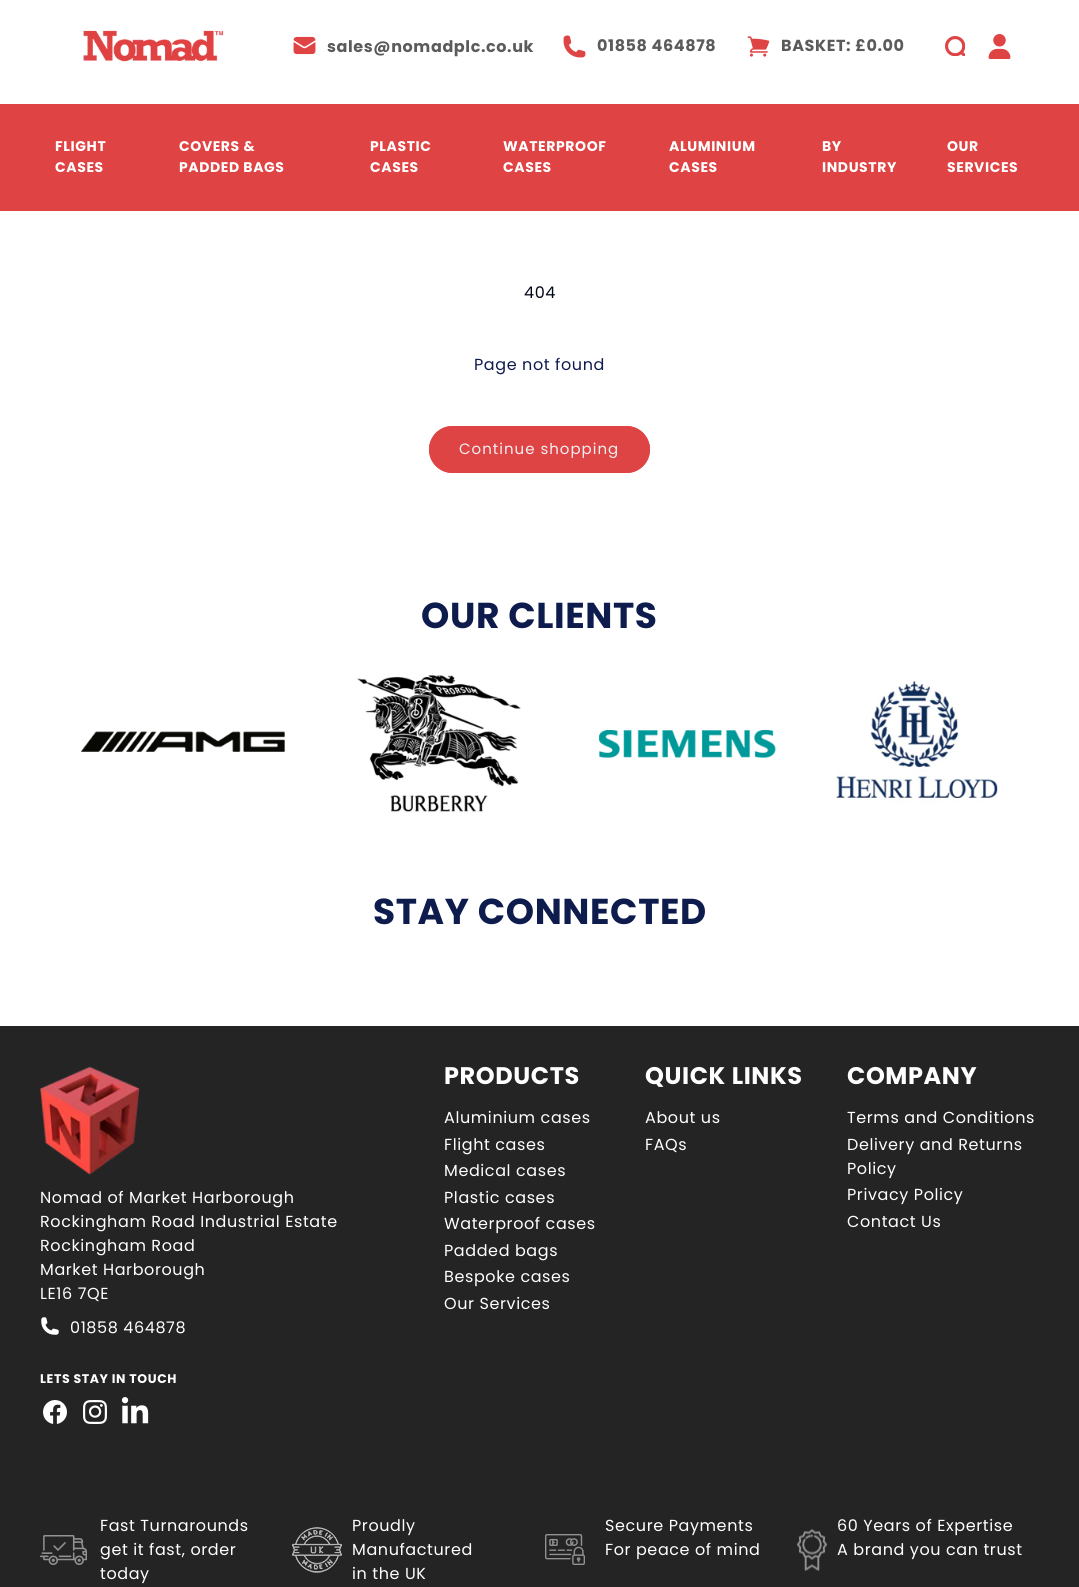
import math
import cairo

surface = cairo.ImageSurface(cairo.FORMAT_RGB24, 1079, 1587)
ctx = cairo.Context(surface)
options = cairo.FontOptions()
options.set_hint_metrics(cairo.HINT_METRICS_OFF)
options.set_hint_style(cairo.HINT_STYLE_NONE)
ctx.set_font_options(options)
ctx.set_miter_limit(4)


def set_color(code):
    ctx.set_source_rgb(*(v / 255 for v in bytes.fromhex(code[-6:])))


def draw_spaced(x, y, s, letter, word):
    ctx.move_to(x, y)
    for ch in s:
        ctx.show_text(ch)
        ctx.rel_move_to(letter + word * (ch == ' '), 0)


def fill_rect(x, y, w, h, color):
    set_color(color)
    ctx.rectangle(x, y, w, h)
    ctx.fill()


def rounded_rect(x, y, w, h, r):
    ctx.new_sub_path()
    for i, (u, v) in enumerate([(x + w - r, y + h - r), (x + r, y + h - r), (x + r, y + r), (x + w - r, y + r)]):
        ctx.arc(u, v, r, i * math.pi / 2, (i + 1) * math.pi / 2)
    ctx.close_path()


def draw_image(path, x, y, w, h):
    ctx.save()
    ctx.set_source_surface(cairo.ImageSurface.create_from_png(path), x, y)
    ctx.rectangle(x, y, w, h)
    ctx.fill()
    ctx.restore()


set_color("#ffffff")
ctx.paint()
draw_image("assets/img1.png", 83, 30, 141, 32)
draw_image("assets/img2.png", 293, 36, 23, 19)
ctx.select_font_face("Poppins", cairo.FONT_SLANT_NORMAL, cairo.FONT_WEIGHT_BOLD)
ctx.set_font_size(16)
set_color("#5b5b5b")
draw_spaced(327, 52, "sales@nomadplc.co.uk", 0.6, 0)
draw_image("assets/img3.png", 563, 35, 23, 23)
draw_spaced(597, 51, "01858 464878", 0.6, 0)
draw_image("assets/img4.png", 747, 36, 23, 21)
draw_spaced(781, 51, "BASKET: £0.00", 0.6, 0)
draw_image("assets/img5.png", 945, 36, 20, 20)
draw_image("assets/img6.png", 988, 34, 23, 25)
fill_rect(0, 104, 1079, 107, "#df4343")
ctx.set_font_size(14)
set_color("#ffffff")
draw_spaced(55, 151, "FLIGHT", 0.6, 0)
draw_spaced(55, 172, "CASES", 0.6, 0)
draw_spaced(179, 151, "COVERS &", 0.6, 0)
draw_spaced(179, 172, "PADDED BAGS", 0.6, 0)
draw_spaced(370, 151, "PLASTIC", 0.6, 0)
draw_spaced(370, 172, "CASES", 0.6, 0)
draw_spaced(503, 151, "WATERPROOF", 0.6, 0)
draw_spaced(503, 172, "CASES", 0.6, 0)
draw_spaced(669, 151, "ALUMINIUM", 0.6, 0)
draw_spaced(669, 172, "CASES", 0.6, 0)
draw_spaced(822, 151, "BY", 0.6, 0)
draw_spaced(822, 172, "INDUSTRY", 0.6, 0)
draw_spaced(947, 151, "OUR", 0.6, 0)
draw_spaced(947, 172, "SERVICES", 0.6, 0)
ctx.select_font_face("Poppins")
ctx.set_font_size(16)
set_color("#020817")
draw_spaced(524, 298, "404", 0.6, 0)
set_color("#0e1b4d")
draw_spaced(474, 370, "Page not found", 0.6, 0)
set_color("#df4444")
rounded_rect(429, 426, 221, 47, 23.5)
ctx.fill()
rounded_rect(429.5, 426.5, 220, 46, 23)
ctx.set_line_width(1)
ctx.stroke()
ctx.set_font_size(15)
set_color("#eff0f5")
draw_spaced(459, 454, "Continue shopping", 1, 0)
ctx.select_font_face("Poppins", cairo.FONT_SLANT_NORMAL, cairo.FONT_WEIGHT_BOLD)
ctx.set_font_size(36)
set_color("#0e1b4d")
draw_spaced(421, 628, "OUR CLIENTS", 0.6, 0)
draw_image("assets/img7.png", 81, 731, 204, 21)
draw_image("assets/img8.png", 357, 675, 164, 138)
draw_image("assets/img9.png", 599, 730, 177, 28)
draw_image("assets/img10.png", 836, 680, 162, 124)
draw_spaced(373, 924, "STAY CONNECTED", 0.6, 0)
fill_rect(0, 1026, 1079, 561, "#242424")
ctx.set_font_size(24)
set_color("#ffffff")
draw_spaced(444, 1084, "PRODUCTS", 0.6, 0)
ctx.select_font_face("Poppins")
ctx.set_font_size(16)
draw_spaced(444, 1123, "Aluminium cases", 0.6, 0)
draw_spaced(444, 1150, "Flight cases", 0.6, 0)
draw_spaced(444, 1176, "Medical cases", 0.6, 0)
draw_spaced(444, 1203, "Plastic cases", 0.6, 0)
draw_spaced(444, 1229, "Waterproof cases", 0.6, 0)
draw_spaced(444, 1256, "Padded bags", 0.6, 0)
draw_spaced(444, 1282, "Bespoke cases", 0.6, 0)
draw_spaced(444, 1309, "Our Services", 0.6, 0)
ctx.select_font_face("Poppins", cairo.FONT_SLANT_NORMAL, cairo.FONT_WEIGHT_BOLD)
ctx.set_font_size(24)
draw_spaced(645, 1084, "QUICK LINKS", 0.6, 0)
ctx.select_font_face("Poppins")
ctx.set_font_size(16)
draw_spaced(645, 1123, "About us", 0.6, 0)
draw_spaced(645, 1150, "FAQs", 0.6, 0)
ctx.select_font_face("Poppins", cairo.FONT_SLANT_NORMAL, cairo.FONT_WEIGHT_BOLD)
ctx.set_font_size(24)
draw_spaced(847, 1084, "COMPANY", 0.6, 0)
ctx.select_font_face("Poppins")
ctx.set_font_size(16)
draw_spaced(847, 1123, "Terms and Conditions", 0.6, 0)
draw_spaced(847, 1150, "Delivery and Returns", 0.6, 0)
draw_spaced(847, 1174, "Policy", 0.6, 0)
draw_spaced(847, 1200, "Privacy Policy", 0.6, 0)
draw_spaced(847, 1227, "Contact Us", 0.6, 0)
draw_image("assets/img11.png", 40, 1067, 100, 108)
draw_spaced(40, 1203, "Nomad of Market Harborough", 0.6, 0)
draw_spaced(40, 1227, "Rockingham Road Industrial Estate", 0.6, 0)
draw_spaced(40, 1251, "Rockingham Road", 0.6, 0)
draw_spaced(40, 1275, "Market Harborough", 0.6, 0)
draw_spaced(40, 1299, "LE16 7QE", 0.6, 0)
draw_image("assets/img12.png", 41, 1317, 18, 18)
draw_spaced(70, 1333, "01858 464878", 0.6, 0)
ctx.select_font_face("Poppins", cairo.FONT_SLANT_NORMAL, cairo.FONT_WEIGHT_BOLD)
ctx.set_font_size(12.5)
draw_spaced(40, 1383, "LETS STAY IN TOUCH", 0.6, 0)
draw_image("assets/img13.png", 43, 1400, 24, 24)
draw_image("assets/img14.png", 83, 1400, 24, 24)
draw_image("assets/img15.png", 121, 1397, 28, 27)
draw_image("assets/img16.png", 40, 1535, 47, 30)
ctx.select_font_face("Poppins")
ctx.set_font_size(16)
draw_spaced(100, 1531, "Fast Turnarounds", 0.6, 0)
draw_spaced(100, 1555, "get it fast, order", 0.6, 0)
draw_spaced(100, 1579, "today", 0.6, 0)
draw_image("assets/img17.png", 292, 1527, 50, 46)
draw_spaced(352, 1531, "Proudly", 0.6, 0)
draw_spaced(352, 1555, "Manufactured", 0.6, 0)
draw_spaced(352, 1579, "in the UK", 0.6, 0)
draw_image("assets/img18.png", 545, 1534, 40, 31)
draw_spaced(605, 1531, "Secure Payments", 0.6, 0)
draw_spaced(605, 1555, "For peace of mind", 0.6, 0)
draw_image("assets/img19.png", 797, 1529, 30, 42)
draw_spaced(837, 1531, "60 Years of Expertise", 0.6, 0)
draw_spaced(837, 1555, "A brand you can trust", 0.6, 0)
surface.write_to_png("output.png")
